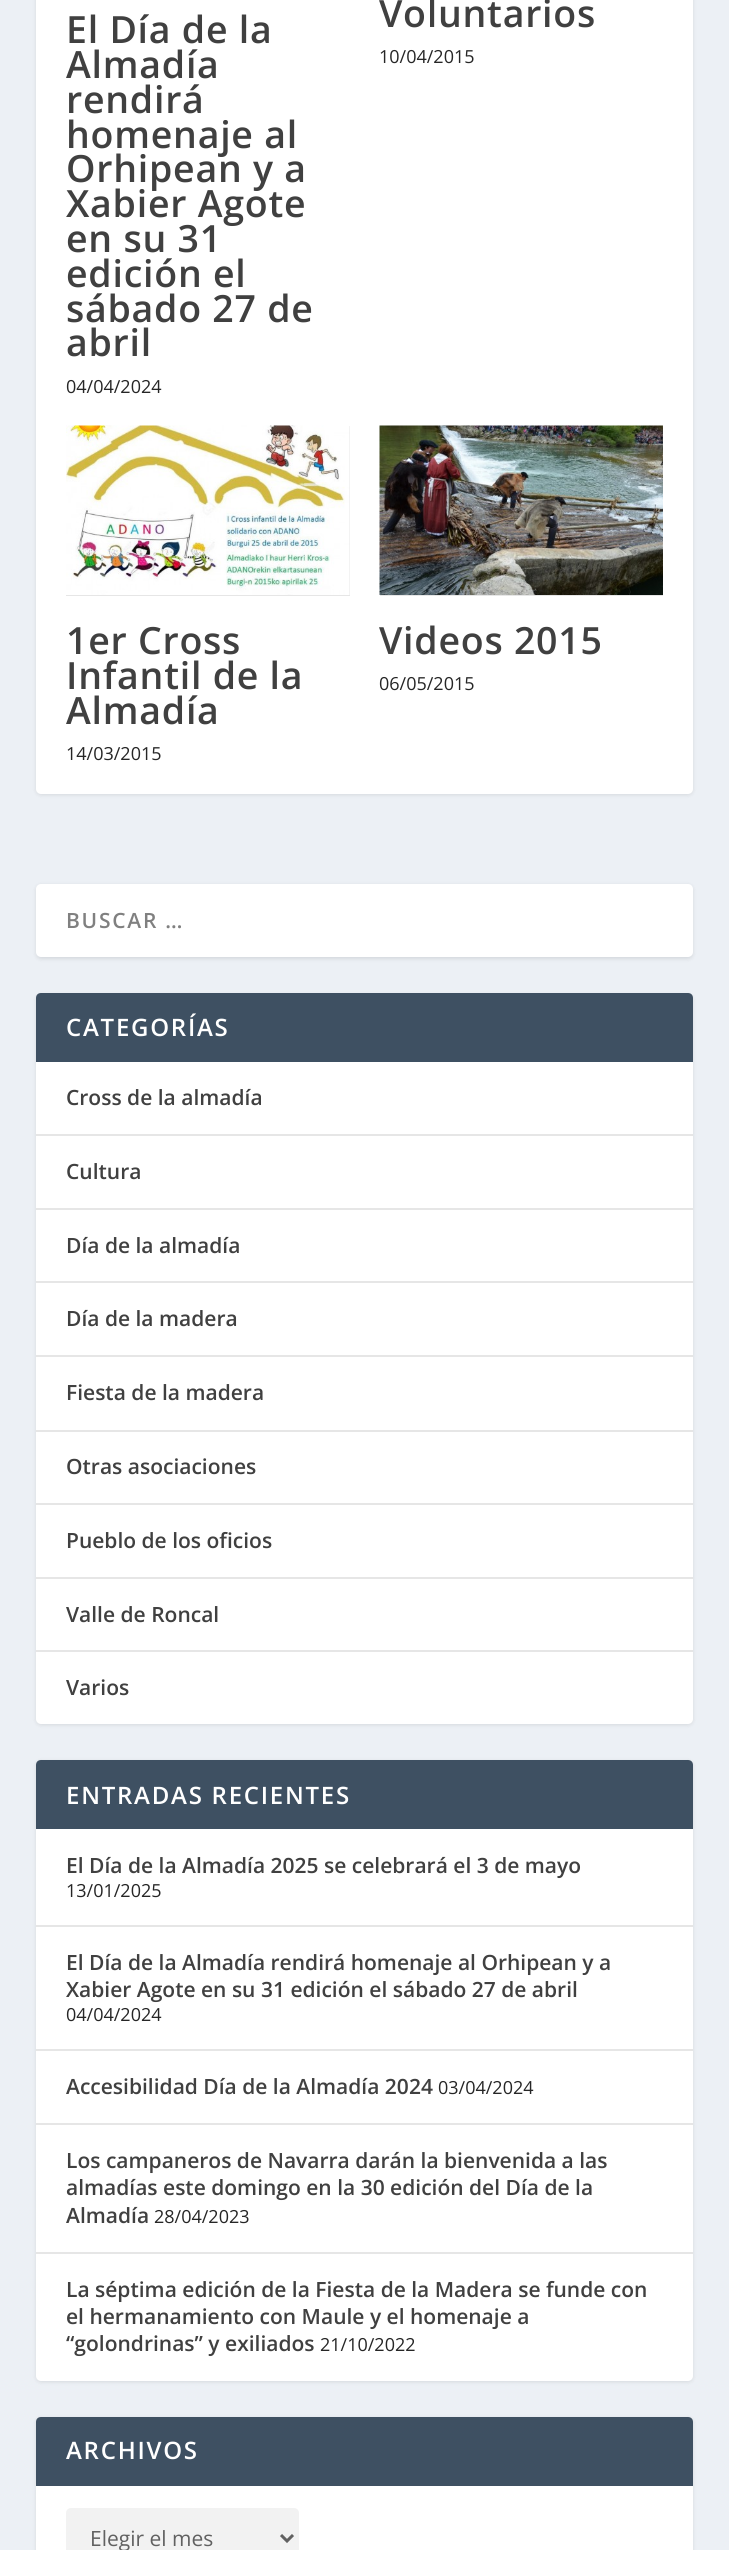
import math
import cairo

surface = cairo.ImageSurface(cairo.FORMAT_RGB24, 729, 2550)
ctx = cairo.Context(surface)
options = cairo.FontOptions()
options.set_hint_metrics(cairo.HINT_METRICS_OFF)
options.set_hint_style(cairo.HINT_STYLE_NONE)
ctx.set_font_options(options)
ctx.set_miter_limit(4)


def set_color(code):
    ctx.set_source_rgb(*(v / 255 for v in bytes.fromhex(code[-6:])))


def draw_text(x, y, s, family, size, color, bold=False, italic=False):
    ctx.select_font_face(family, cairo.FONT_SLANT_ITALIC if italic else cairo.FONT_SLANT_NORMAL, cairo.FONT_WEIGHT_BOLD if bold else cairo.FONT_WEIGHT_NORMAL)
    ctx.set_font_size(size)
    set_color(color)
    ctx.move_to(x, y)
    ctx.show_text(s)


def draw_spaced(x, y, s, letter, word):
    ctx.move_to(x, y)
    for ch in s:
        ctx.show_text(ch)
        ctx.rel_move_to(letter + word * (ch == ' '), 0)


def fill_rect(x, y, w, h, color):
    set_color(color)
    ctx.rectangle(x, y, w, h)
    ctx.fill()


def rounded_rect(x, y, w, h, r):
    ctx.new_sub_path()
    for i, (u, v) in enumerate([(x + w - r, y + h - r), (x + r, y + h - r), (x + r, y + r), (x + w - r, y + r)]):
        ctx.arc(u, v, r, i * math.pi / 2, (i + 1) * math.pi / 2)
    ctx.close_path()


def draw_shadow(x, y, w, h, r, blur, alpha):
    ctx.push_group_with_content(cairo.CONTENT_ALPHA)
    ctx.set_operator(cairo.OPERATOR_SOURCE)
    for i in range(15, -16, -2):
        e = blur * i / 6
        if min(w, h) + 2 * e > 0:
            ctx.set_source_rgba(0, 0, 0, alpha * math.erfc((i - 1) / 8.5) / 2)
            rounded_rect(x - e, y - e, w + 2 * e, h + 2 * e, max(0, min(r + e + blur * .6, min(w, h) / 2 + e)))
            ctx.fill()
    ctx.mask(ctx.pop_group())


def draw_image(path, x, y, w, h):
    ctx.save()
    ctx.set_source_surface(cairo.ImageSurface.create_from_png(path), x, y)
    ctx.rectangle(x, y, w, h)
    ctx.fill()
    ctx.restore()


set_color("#ecf0f5")
ctx.paint()
set_color("#000000")
draw_shadow(36, -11, 657, 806, 5, 2, 0.1)
set_color("#ffffff")
rounded_rect(36, -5, 657, 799, 5)
ctx.fill()
ctx.select_font_face("Open Sans SemiBold")
ctx.set_font_size(37.5)
set_color("#404040")
draw_spaced(66, 43, "El Día de la", 0.75, 0)
draw_spaced(66, 78, "Almadía", 0.75, 0)
draw_spaced(66, 113, "rendirá", 0.75, 0)
draw_spaced(66, 148, "homenaje al", 0.75, 0)
draw_spaced(66, 182, "Orhipean y a", 0.75, 0)
draw_spaced(66, 217, "Xabier Agote", 0.75, 0)
draw_spaced(66, 252, "en su 31", 0.75, 0)
draw_spaced(66, 287, "edición el", 0.75, 0)
draw_spaced(66, 322, "sábado 27 de", 0.75, 0)
draw_spaced(66, 356, "abril", 0.75, 0)
draw_text(66, 393, "04/04/2024", "Open Sans", 18, "#262626")
ctx.select_font_face("Open Sans SemiBold")
ctx.set_font_size(37.5)
set_color("#404040")
draw_spaced(379, 27, "Voluntarios", 0.75, 0)
draw_text(379, 63, "10/04/2015", "Open Sans", 18, "#262626")
fill_rect(66, 426, 284, 170, "#e6e6e6")
draw_image("assets/img1.png", 66, 425, 284, 170)
ctx.select_font_face("Open Sans SemiBold")
ctx.set_font_size(37.5)
set_color("#404040")
draw_spaced(66, 654, "1er Cross", 0.75, 0)
draw_spaced(66, 689, "Infantil de la", 0.75, 0)
draw_spaced(66, 724, "Almadía", 0.75, 0)
draw_text(66, 760, "14/03/2015", "Open Sans", 18, "#262626")
fill_rect(380, 595, 283, 1, "#e6e6e6")
draw_image("assets/img2.png", 379, 425, 284, 170)
ctx.select_font_face("Open Sans SemiBold")
ctx.set_font_size(37.5)
set_color("#404040")
draw_spaced(379, 654, "Videos 2015", 0.75, 0)
draw_text(379, 690, "06/05/2015", "Open Sans", 18, "#262626")
set_color("#000000")
draw_shadow(36, 885, 657, 74, 5, 2, 0.1)
set_color("#ffffff")
rounded_rect(36, 884, 657, 73, 5)
ctx.fill()
ctx.select_font_face("Open Sans SemiBold")
ctx.set_font_size(21)
set_color("#808080")
draw_spaced(66, 928, "BUSCAR …", 1.75, 0)
set_color("#000000")
draw_shadow(36, 995, 657, 730, 5, 2, 0.1)
set_color("#ffffff")
rounded_rect(36, 993, 657, 731, 5)
ctx.fill()
set_color("#3e5062")
ctx.new_path()
ctx.move_to(41, 993)
ctx.line_to(688, 993)
ctx.curve_to(691, 993, 693, 995, 693, 998)
ctx.line_to(693, 1062)
ctx.line_to(36, 1062)
ctx.line_to(36, 998)
ctx.curve_to(36, 995, 38, 993, 41, 993)
ctx.close_path()
ctx.fill()
ctx.set_font_size(24)
set_color("#ffffff")
draw_spaced(66, 1036, "CATEGORÍAS", 1.75, 0)
fill_rect(36, 1134, 657, 2, "#e6e6e6")
draw_text(66, 1105, "Cross de la almadía", "Open Sans SemiBold", 21, "#404040")
fill_rect(36, 1208, 657, 2, "#e6e6e6")
draw_text(66, 1179, "Cultura", "Open Sans SemiBold", 21, "#404040")
fill_rect(36, 1281, 657, 2, "#e6e6e6")
draw_text(66, 1253, "Día de la almadía", "Open Sans SemiBold", 21, "#404040")
fill_rect(36, 1355, 657, 2, "#e6e6e6")
draw_text(66, 1326, "Día de la madera", "Open Sans SemiBold", 21, "#404040")
fill_rect(36, 1430, 657, 2, "#e6e6e6")
draw_text(66, 1400, "Fiesta de la madera", "Open Sans SemiBold", 21, "#404040")
fill_rect(36, 1503, 657, 2, "#e6e6e6")
draw_text(66, 1474, "Otras asociaciones", "Open Sans SemiBold", 21, "#404040")
fill_rect(36, 1577, 657, 2, "#e6e6e6")
draw_text(66, 1548, "Pueblo de los oficios", "Open Sans SemiBold", 21, "#404040")
fill_rect(36, 1650, 657, 2, "#e6e6e6")
draw_text(66, 1622, "Valle de Roncal", "Open Sans SemiBold", 21, "#404040")
draw_text(66, 1695, "Varios", "Open Sans SemiBold", 21, "#404040")
set_color("#000000")
draw_shadow(36, 1761, 657, 621, 5, 2, 0.1)
set_color("#ffffff")
rounded_rect(36, 1760, 657, 621, 5)
ctx.fill()
set_color("#3e5062")
ctx.new_path()
ctx.move_to(41, 1760)
ctx.line_to(688, 1760)
ctx.curve_to(691, 1760, 693, 1762, 693, 1765)
ctx.line_to(693, 1829)
ctx.line_to(36, 1829)
ctx.line_to(36, 1765)
ctx.curve_to(36, 1762, 38, 1760, 41, 1760)
ctx.close_path()
ctx.fill()
ctx.set_font_size(24)
set_color("#ffffff")
draw_spaced(66, 1804, "ENTRADAS RECIENTES", 1.75, 0)
fill_rect(36, 1925, 657, 2, "#e6e6e6")
draw_text(66, 1873, "El Día de la Almadía 2025 se celebrará el 3 de mayo", "Open Sans SemiBold", 21, "#404040")
draw_text(66, 1897, "13/01/2025", "Open Sans", 18, "#262626")
fill_rect(36, 2049, 657, 2, "#e6e6e6")
draw_text(66, 1970, "El Día de la Almadía rendirá homenaje al Orhipean y a", "Open Sans SemiBold", 21, "#404040")
draw_text(66, 1997, "Xabier Agote en su 31 edición el sábado 27 de abril", "Open Sans SemiBold", 21, "#404040")
draw_text(66, 2021, "04/04/2024", "Open Sans", 18, "#262626")
fill_rect(36, 2123, 657, 2, "#e6e6e6")
draw_text(66, 2094, "Accesibilidad Día de la Almadía 2024", "Open Sans SemiBold", 21, "#404040")
draw_text(438, 2094, "03/04/2024", "Open Sans", 18, "#262626")
fill_rect(36, 2252, 657, 2, "#e6e6e6")
draw_text(66, 2168, "Los campaneros de Navarra darán la bienvenida a las", "Open Sans SemiBold", 21, "#404040")
draw_text(66, 2195, "almadías este domingo en la 30 edición del Día de la", "Open Sans SemiBold", 21, "#404040")
draw_text(66, 2223, "Almadía", "Open Sans SemiBold", 21, "#404040")
draw_text(154, 2223, "28/04/2023", "Open Sans", 18, "#262626")
draw_text(66, 2297, "La séptima edición de la Fiesta de la Madera se funde con", "Open Sans SemiBold", 21, "#404040")
draw_text(66, 2324, "el hermanamiento con Maule y el homenaje a", "Open Sans SemiBold", 21, "#404040")
draw_text(66, 2351, "“golondrinas” y exiliados", "Open Sans SemiBold", 21, "#404040")
draw_text(320, 2351, "21/10/2022", "Open Sans", 18, "#262626")
set_color("#000000")
draw_shadow(36, 2418, 657, 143, 5, 2, 0.1)
set_color("#ffffff")
rounded_rect(36, 2417, 657, 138, 5)
ctx.fill()
set_color("#3e5062")
ctx.new_path()
ctx.move_to(41, 2417)
ctx.line_to(688, 2417)
ctx.curve_to(691, 2417, 693, 2419, 693, 2422)
ctx.line_to(693, 2486)
ctx.line_to(36, 2486)
ctx.line_to(36, 2422)
ctx.curve_to(36, 2419, 38, 2417, 41, 2417)
ctx.close_path()
ctx.fill()
ctx.select_font_face("Open Sans SemiBold")
ctx.set_font_size(24)
set_color("#ffffff")
draw_spaced(66, 2459, "ARCHIVOS", 1.75, 0)
set_color("#f2f2f2")
rounded_rect(66, 2508, 233, 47, 5)
ctx.fill()
ctx.new_path()
ctx.move_to(281, 2535)
ctx.line_to(287, 2541)
ctx.line_to(293, 2535)
set_color("#616161")
ctx.set_line_width(3)
ctx.stroke()
draw_text(90, 2546, "Elegir el mes", "Open Sans", 21, "#616161")
surface.write_to_png("output.png")
